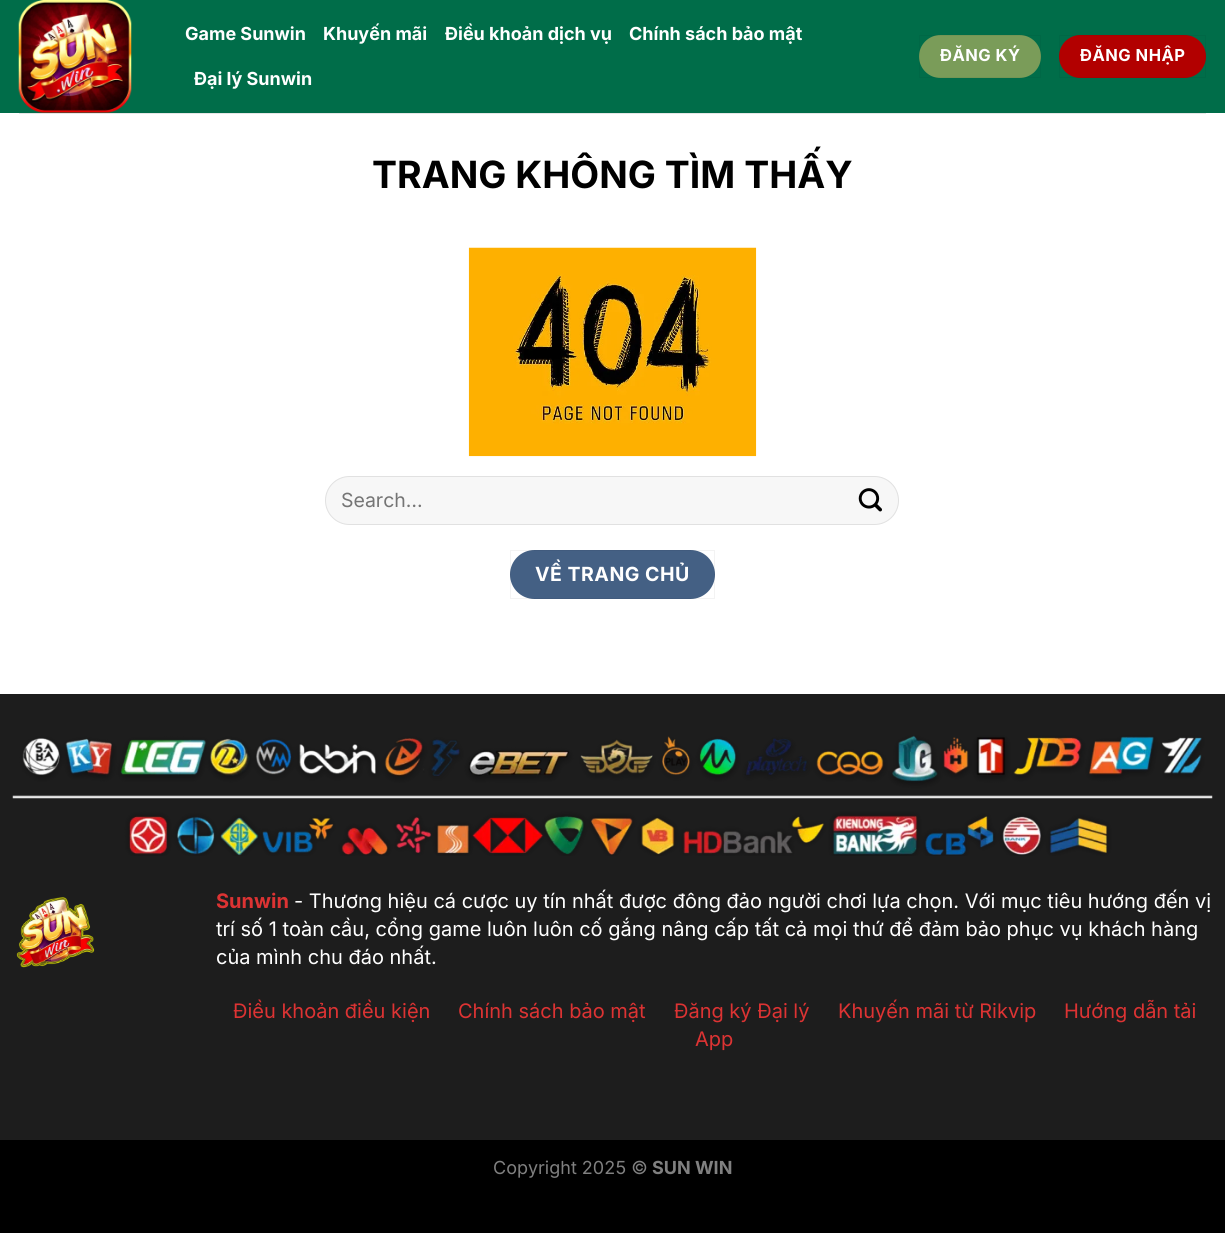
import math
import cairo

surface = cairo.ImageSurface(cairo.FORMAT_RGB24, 1225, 1233)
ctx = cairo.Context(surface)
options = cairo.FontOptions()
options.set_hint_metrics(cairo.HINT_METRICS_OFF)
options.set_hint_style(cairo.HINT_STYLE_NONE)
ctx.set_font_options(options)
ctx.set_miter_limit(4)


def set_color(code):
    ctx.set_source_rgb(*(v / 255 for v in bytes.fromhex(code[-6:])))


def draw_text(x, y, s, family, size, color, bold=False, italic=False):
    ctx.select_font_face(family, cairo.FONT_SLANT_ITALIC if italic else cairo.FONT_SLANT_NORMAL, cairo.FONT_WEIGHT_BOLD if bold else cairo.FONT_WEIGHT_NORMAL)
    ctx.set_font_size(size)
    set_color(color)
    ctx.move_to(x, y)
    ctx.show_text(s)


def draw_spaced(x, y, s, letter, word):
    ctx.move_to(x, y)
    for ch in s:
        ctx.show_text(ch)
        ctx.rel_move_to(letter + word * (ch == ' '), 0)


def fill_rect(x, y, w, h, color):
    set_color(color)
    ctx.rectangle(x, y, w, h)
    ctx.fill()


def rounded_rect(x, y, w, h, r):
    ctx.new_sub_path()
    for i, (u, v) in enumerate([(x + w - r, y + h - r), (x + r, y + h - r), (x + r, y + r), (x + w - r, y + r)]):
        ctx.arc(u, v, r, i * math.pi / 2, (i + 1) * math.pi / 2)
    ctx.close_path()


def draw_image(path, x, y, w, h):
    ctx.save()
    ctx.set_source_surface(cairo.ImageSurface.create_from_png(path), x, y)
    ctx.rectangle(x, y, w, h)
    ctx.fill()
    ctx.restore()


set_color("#000000")
ctx.paint()
fill_rect(0, 113, 1225, 581, "#ffffff")
fill_rect(0, 0, 1225, 113, "#006d49")
draw_image("assets/img1.png", 18, 0, 114, 113)
draw_text(185, 40, "Game Sunwin", "Inter", 18, "#ffffff", bold=True)
draw_text(323, 40, "Khuyến mãi", "Inter", 18, "#ffffff", bold=True)
draw_text(445, 40, "Điều khoản dịch vụ", "Inter", 18, "#ffffff", bold=True)
draw_text(629, 40, "Chính sách bảo mật", "Inter", 18, "#ffffff", bold=True)
draw_text(194, 85, "Đại lý Sunwin", "Inter", 18, "#ffffff", bold=True)
set_color("#7a9c59")
rounded_rect(919, 35, 122, 43, 21.5)
ctx.fill()
ctx.rectangle(919.5, 35.5, 121, 42)
ctx.set_source_rgba(0, 0, 0, 0.05)
ctx.set_line_width(1)
ctx.stroke()
ctx.set_font_size(16.5)
set_color("#ffffff")
draw_spaced(940, 61, "ĐĂNG KÝ", 0.5, 0)
set_color("#b20000")
rounded_rect(1059, 35, 147, 43, 21.5)
ctx.fill()
ctx.rectangle(1059.5, 35.5, 146, 42)
ctx.set_source_rgba(0, 0, 0, 0.05)
ctx.stroke()
set_color("#ffffff")
draw_spaced(1080, 61, "ĐĂNG NHẬP", 0.5, 0)
fill_rect(19, 113, 1187, 1, "#e6e6e6")
draw_text(372, 188, "TRANG KHÔNG TÌM THẤY", "Inter", 37.5, "#000000", bold=True)
draw_image("assets/img2.png", 468, 247, 289, 210)
set_color("#f7f7f7")
rounded_rect(325, 476, 574, 49, 24.5)
ctx.fill()
rounded_rect(325.5, 476.5, 573, 48, 24)
ctx.set_source_rgba(0, 0, 0, 0.09)
ctx.stroke()
draw_text(341, 507, "Search…", "Inter", 19.5, "#757575")
draw_image("assets/img3.png", 858, 488, 24, 24)
set_color("#446084")
rounded_rect(510, 550, 205, 49, 24.5)
ctx.fill()
ctx.rectangle(510.5, 550.5, 204, 48)
ctx.set_source_rgba(0, 0, 0, 0.05)
ctx.stroke()
ctx.select_font_face("Inter", cairo.FONT_SLANT_NORMAL, cairo.FONT_WEIGHT_BOLD)
set_color("#ffffff")
draw_spaced(535, 581, "VỀ TRANG CHỦ", 0.5, 0)
fill_rect(0, 694, 1225, 446, "#1d1d1d")
draw_image("assets/img4.png", 12, 735, 1201, 121)
draw_image("assets/img5.png", 16, 897, 79, 71)
draw_text(216, 908, "Sunwin", "Inter", 20, "#dd3333", bold=True)
draw_text(294, 908, "- Thương hiệu cá cược uy tín nhất được đông đảo người chơi lựa chọn. Với mục tiêu hướng đến vị", "Inter", 20, "#ffffff")
draw_text(216, 936, "trí số 1 toàn cầu, cổng game luôn luôn cố gắng nâng cấp tất cả mọi thứ để đảm bảo phục vụ khách hàng", "Inter", 20, "#ffffff")
draw_text(216, 964, "của mình chu đáo nhất.", "Inter", 20, "#ffffff")
draw_text(233, 1018, "Điều khoản điều kiện", "Inter", 20, "#dd3333")
draw_text(458, 1018, "Chính sách bảo mật", "Inter", 20, "#dd3333")
draw_text(674, 1018, "Đăng ký Đại lý", "Inter", 20, "#dd3333")
draw_text(838, 1018, "Khuyến mãi từ Rikvip", "Inter", 20, "#dd3333")
draw_text(1064, 1018, "Hướng dẫn tải", "Inter", 20, "#dd3333")
draw_text(695, 1046, "App", "Inter", 20, "#dd3333")
draw_text(493, 1174, "Copyright 2025 ©", "Inter", 18, "#808080")
draw_text(652, 1174, "SUN WIN", "Inter", 18, "#808080", bold=True)
surface.write_to_png("output.png")
